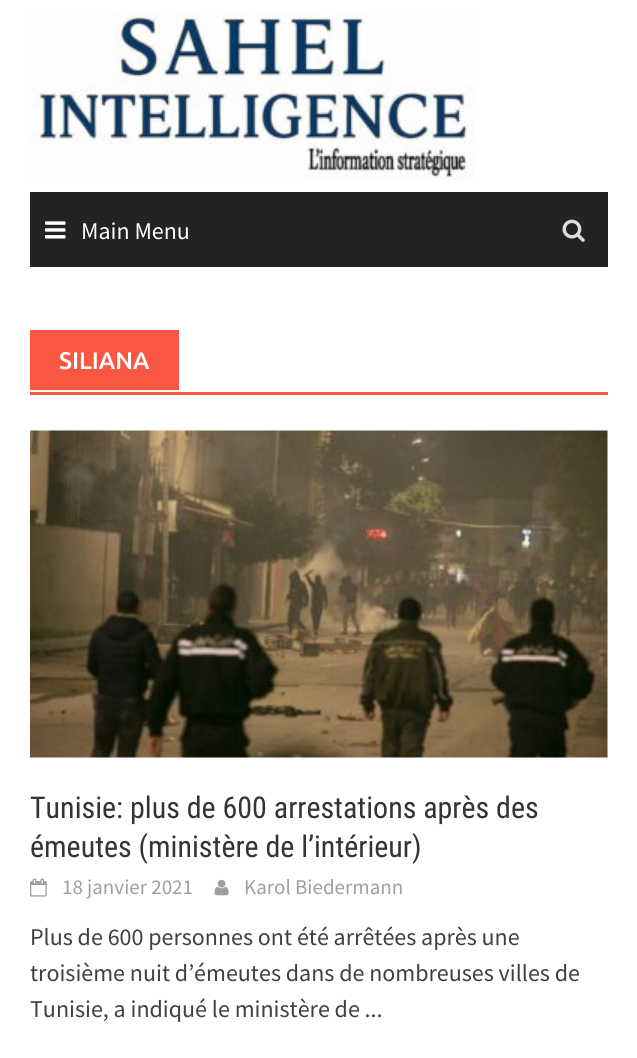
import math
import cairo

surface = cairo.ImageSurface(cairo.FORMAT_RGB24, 637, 1058)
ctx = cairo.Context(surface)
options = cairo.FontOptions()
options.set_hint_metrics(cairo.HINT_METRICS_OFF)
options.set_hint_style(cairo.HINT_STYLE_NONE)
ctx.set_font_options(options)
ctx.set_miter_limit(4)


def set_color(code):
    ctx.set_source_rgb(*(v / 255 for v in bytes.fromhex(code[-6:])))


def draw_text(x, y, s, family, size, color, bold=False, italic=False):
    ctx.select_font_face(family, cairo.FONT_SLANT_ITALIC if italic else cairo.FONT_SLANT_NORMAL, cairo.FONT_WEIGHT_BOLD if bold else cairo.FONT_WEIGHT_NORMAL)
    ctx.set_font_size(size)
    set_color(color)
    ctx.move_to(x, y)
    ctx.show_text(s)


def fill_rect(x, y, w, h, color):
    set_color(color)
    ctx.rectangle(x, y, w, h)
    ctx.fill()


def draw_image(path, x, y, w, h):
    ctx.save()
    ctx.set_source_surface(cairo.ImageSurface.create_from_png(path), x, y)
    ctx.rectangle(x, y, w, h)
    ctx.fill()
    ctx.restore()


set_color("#ffffff")
ctx.paint()
draw_image("assets/img1.png", 30, 12, 444, 168)
fill_rect(30, 192, 578, 75, "#232323")
draw_image("assets/img2.png", 45, 221, 21, 18)
draw_text(81, 239, "Main Menu", "Source Sans Pro", 24, "#ffffff")
draw_image("assets/img3.png", 562, 219, 23, 23)
fill_rect(30, 392, 578, 3, "#fa5742")
fill_rect(30, 330, 149, 60, "#fa5742")
draw_text(59, 369, "SILIANA", "Ubuntu Medium", 24, "#ffffff")
draw_image("assets/img4.png", 30, 430, 578, 328)
draw_text(30, 818, "Tunisie: plus de 600 arrestations après des", "Roboto Condensed", 30, "#353434")
draw_text(30, 857, "émeutes (ministère de l’intérieur)", "Roboto Condensed", 30, "#353434")
draw_image("assets/img5.png", 30, 878, 17, 19)
draw_text(62, 894, "18 janvier 2021", "Source Sans Pro", 21, "#9f9f9f")
draw_image("assets/img6.png", 214, 879, 15, 17)
draw_text(244, 894, "Karol Biedermann", "Source Sans Pro", 21, "#9f9f9f")
draw_text(30, 945, "Plus de 600 personnes ont été arrêtées après une", "Source Sans Pro", 24, "#404040")
draw_text(30, 981, "troisième nuit d’émeutes dans de nombreuses villes de", "Source Sans Pro", 24, "#404040")
draw_text(30, 1017, "Tunisie, a indiqué le ministère de ...", "Source Sans Pro", 24, "#404040")
surface.write_to_png("output.png")
